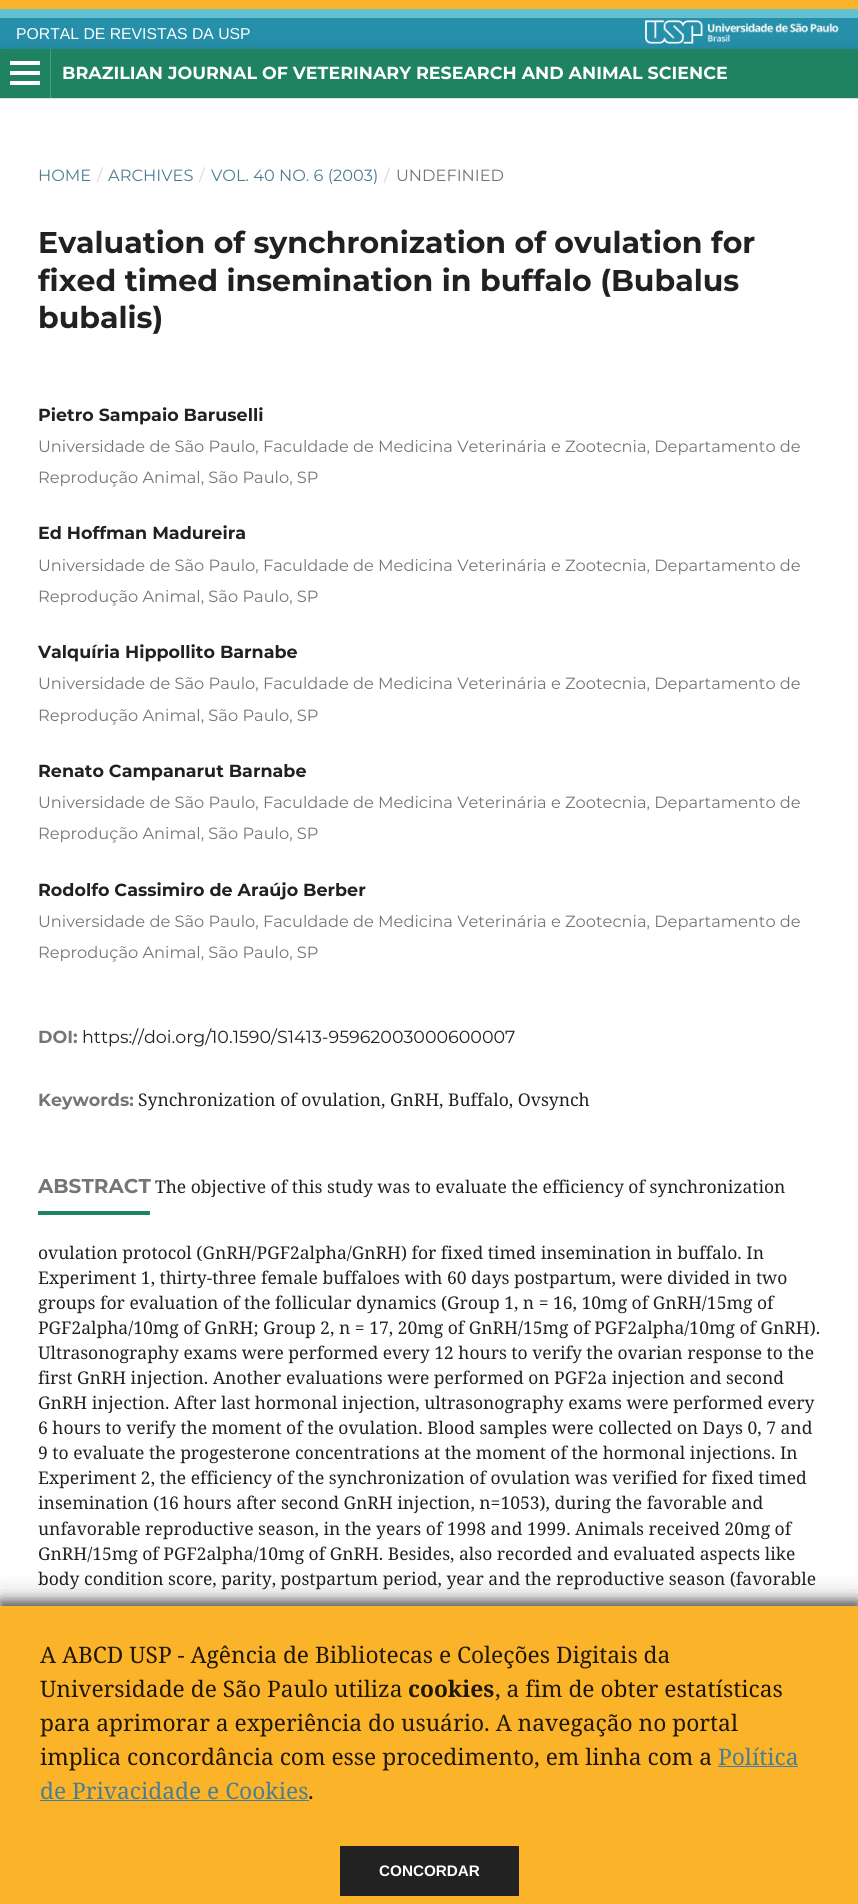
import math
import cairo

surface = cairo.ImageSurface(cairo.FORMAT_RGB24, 858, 1904)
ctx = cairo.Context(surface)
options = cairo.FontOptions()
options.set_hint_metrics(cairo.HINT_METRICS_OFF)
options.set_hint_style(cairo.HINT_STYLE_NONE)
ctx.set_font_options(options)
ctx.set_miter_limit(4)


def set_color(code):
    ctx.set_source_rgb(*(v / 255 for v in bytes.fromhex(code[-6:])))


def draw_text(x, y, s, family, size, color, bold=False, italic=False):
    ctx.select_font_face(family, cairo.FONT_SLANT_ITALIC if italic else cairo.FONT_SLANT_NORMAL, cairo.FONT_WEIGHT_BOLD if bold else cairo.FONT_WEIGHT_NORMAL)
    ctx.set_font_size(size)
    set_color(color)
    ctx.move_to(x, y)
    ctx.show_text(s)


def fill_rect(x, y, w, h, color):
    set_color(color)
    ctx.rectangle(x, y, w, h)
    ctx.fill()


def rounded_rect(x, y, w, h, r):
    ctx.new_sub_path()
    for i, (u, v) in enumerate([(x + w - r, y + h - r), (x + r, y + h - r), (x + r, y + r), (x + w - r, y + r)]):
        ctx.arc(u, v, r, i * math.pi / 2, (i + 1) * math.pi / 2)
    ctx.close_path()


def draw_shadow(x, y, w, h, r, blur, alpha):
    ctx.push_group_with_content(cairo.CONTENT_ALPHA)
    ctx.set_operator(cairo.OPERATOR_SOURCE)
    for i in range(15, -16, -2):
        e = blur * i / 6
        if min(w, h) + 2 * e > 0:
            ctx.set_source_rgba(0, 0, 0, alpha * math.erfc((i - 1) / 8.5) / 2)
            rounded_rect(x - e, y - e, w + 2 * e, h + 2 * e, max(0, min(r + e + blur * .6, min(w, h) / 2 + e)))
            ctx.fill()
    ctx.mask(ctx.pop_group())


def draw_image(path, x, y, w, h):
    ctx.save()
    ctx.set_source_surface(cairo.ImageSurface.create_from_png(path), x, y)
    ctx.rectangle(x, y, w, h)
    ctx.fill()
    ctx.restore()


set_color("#fbb42a")
ctx.paint()
fill_rect(0, 9, 858, 9, "#62c2cf")
fill_rect(0, 18, 858, 31, "#268fa9")
set_color("#000000")
draw_shadow(0, 49, 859, 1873, 0, 6, 0.1)
draw_text(16, 39, "PORTAL DE REVISTAS DA USP", "Liberation Sans", 15.75, "#ffffff")
draw_image("assets/img1.png", 645, 20, 194, 24)
fill_rect(0, 99, 858, 1507, "#ffffff")
fill_rect(0, 49, 858, 49, "#1f8361")
fill_rect(0, 98, 858, 1, "#dddddd")
set_color("#4c9c81")
ctx.new_path()
ctx.move_to(1, 98)
ctx.line_to(51, 98)
ctx.line_to(51, 49)
ctx.line_to(50, 49)
ctx.line_to(50, 98)
ctx.close_path()
ctx.fill()
fill_rect(10, 81, 30, 4, "#ffffff")
fill_rect(10, 61, 30, 4, "#ffffff")
fill_rect(10, 71, 30, 4, "#ffffff")
draw_text(62, 79, "BRAZILIAN JOURNAL OF VETERINARY RESEARCH AND ANIMAL SCIENCE", "Montserrat", 17.5, "#ffffff", bold=True)
draw_text(38, 181, "HOME", "Montserrat", 16.25, "#4b7d92")
draw_text(97, 181, "/", "Montserrat", 16.25, "#d6d6d6")
draw_text(108, 181, "ARCHIVES", "Montserrat", 16.25, "#4b7d92")
draw_text(199, 181, "/", "Montserrat", 16.25, "#d6d6d6")
draw_text(211, 181, "VOL. 40 NO. 6 (2003)", "Montserrat", 16.25, "#4b7d92")
draw_text(384, 181, "/", "Montserrat", 16.25, "#d6d6d6")
draw_text(396, 181, "UNDEFINIED", "Montserrat", 16.25, "#757575")
draw_text(38, 253, "Evaluation of synchronization of ovulation for", "Montserrat", 30, "#212121", bold=True)
draw_text(38, 291, "fixed timed insemination in buffalo (Bubalus", "Montserrat", 30, "#212121", bold=True)
draw_text(38, 328, "bubalis)", "Montserrat", 30, "#212121", bold=True)
draw_text(38, 421, "Pietro Sampaio Baruselli", "Montserrat", 17.5, "#212121", bold=True)
draw_text(38, 452, "Universidade de São Paulo, Faculdade de Medicina Veterinária e Zootecnia, Departamento de", "Montserrat", 16.25, "#757575")
draw_text(38, 483, "Reprodução Animal, São Paulo, SP", "Montserrat", 16.25, "#757575")
draw_text(38, 539, "Ed Hoffman Madureira", "Montserrat", 17.5, "#212121", bold=True)
draw_text(38, 571, "Universidade de São Paulo, Faculdade de Medicina Veterinária e Zootecnia, Departamento de", "Montserrat", 16.25, "#757575")
draw_text(38, 602, "Reprodução Animal, São Paulo, SP", "Montserrat", 16.25, "#757575")
draw_text(38, 658, "Valquíria Hippollito Barnabe", "Montserrat", 17.5, "#212121", bold=True)
draw_text(38, 689, "Universidade de São Paulo, Faculdade de Medicina Veterinária e Zootecnia, Departamento de", "Montserrat", 16.25, "#757575")
draw_text(38, 721, "Reprodução Animal, São Paulo, SP", "Montserrat", 16.25, "#757575")
draw_text(38, 777, "Renato Campanarut Barnabe", "Montserrat", 17.5, "#212121", bold=True)
draw_text(38, 808, "Universidade de São Paulo, Faculdade de Medicina Veterinária e Zootecnia, Departamento de", "Montserrat", 16.25, "#757575")
draw_text(38, 839, "Reprodução Animal, São Paulo, SP", "Montserrat", 16.25, "#757575")
draw_text(38, 896, "Rodolfo Cassimiro de Araújo Berber", "Montserrat", 17.5, "#212121", bold=True)
draw_text(38, 927, "Universidade de São Paulo, Faculdade de Medicina Veterinária e Zootecnia, Departamento de", "Montserrat", 16.25, "#757575")
draw_text(38, 958, "Reprodução Animal, São Paulo, SP", "Montserrat", 16.25, "#757575")
draw_text(38, 1043, "DOI:", "Montserrat", 17.5, "#757575", bold=True)
draw_text(82, 1043, "https://doi.org/10.1590/S1413-95962003000600007", "Montserrat", 17.5, "#212121")
draw_text(38, 1106, "Keywords:", "Montserrat", 17.5, "#757575", bold=True)
draw_text(138, 1106, "Synchronization of ovulation, GnRH, Buffalo, Ovsynch", "Noto Serif", 17.5, "#212121")
fill_rect(38, 1211, 112, 4, "#1f8361")
draw_text(38, 1193, "ABSTRACT", "Montserrat", 20, "#757575", bold=True)
draw_text(155, 1193, "The objective of this study was to evaluate the efficiency of synchronization", "Noto Serif", 17.5, "#212121")
draw_text(38, 1259, "ovulation protocol (GnRH/PGF2alpha/GnRH) for fixed timed insemination in buffalo. In", "Noto Serif", 17.5, "#212121")
draw_text(38, 1284, "Experiment 1, thirty-three female buffaloes with 60 days postpartum, were divided in two", "Noto Serif", 17.5, "#212121")
draw_text(38, 1309, "groups for evaluation of the follicular dynamics (Group 1, n = 16, 10mg of GnRH/15mg of", "Noto Serif", 17.5, "#212121")
draw_text(38, 1334, "PGF2alpha/10mg of GnRH; Group 2, n = 17, 20mg of GnRH/15mg of PGF2alpha/10mg of GnRH).", "Noto Serif", 17.5, "#212121")
draw_text(38, 1359, "Ultrasonography exams were performed every 12 hours to verify the ovarian response to the", "Noto Serif", 17.5, "#212121")
draw_text(38, 1384, "first GnRH injection. Another evaluations were performed on PGF2a injection and second", "Noto Serif", 17.5, "#212121")
draw_text(38, 1409, "GnRH injection. After last hormonal injection, ultrasonography exams were performed every", "Noto Serif", 17.5, "#212121")
draw_text(38, 1434, "6 hours to verify the moment of the ovulation. Blood samples were collected on Days 0, 7 and", "Noto Serif", 17.5, "#212121")
draw_text(38, 1459, "9 to evaluate the progesterone concentrations at the moment of the hormonal injections. In", "Noto Serif", 17.5, "#212121")
draw_text(38, 1484, "Experiment 2, the efficiency of the synchronization of ovulation was verified for fixed timed", "Noto Serif", 17.5, "#212121")
draw_text(38, 1509, "insemination (16 hours after second GnRH injection, n=1053), during the favorable and", "Noto Serif", 17.5, "#212121")
draw_text(38, 1535, "unfavorable reproductive season, in the years of 1998 and 1999. Animals received 20mg of", "Noto Serif", 17.5, "#212121")
draw_text(38, 1560, "GnRH/15mg of PGF2alpha/10mg of GnRH. Besides, also recorded and evaluated aspects like", "Noto Serif", 17.5, "#212121")
draw_text(38, 1585, "body condition score, parity, postpartum period, year and the reproductive season (favorable", "Noto Serif", 17.5, "#212121")
set_color("#000000")
draw_shadow(0, 1599, 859, 299, 0, 12.5, 0.3)
draw_shadow(0, 1601, 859, 299, 0, 5, 0.5)
fill_rect(0, 1606, 858, 298, "#fbb42a")
draw_text(40, 1663, "A ABCD USP - Agência de Bibliotecas e Coleções Digitais da", "Noto Serif", 22.75, "#211705")
draw_text(40, 1697, "Universidade de São Paulo utiliza", "Noto Serif", 22.75, "#211705")
draw_text(408, 1697, "cookies", "Noto Serif", 22.75, "#211705", bold=True)
draw_text(495, 1697, ", a fim de obter estatísticas", "Noto Serif", 22.75, "#211705")
draw_text(40, 1731, "para aprimorar a experiência do usuário. A navegação no portal", "Noto Serif", 22.75, "#211705")
draw_text(40, 1765, "implica concordância com esse procedimento, em linha com a", "Noto Serif", 22.75, "#211705")
draw_text(718, 1765, "Política", "Noto Serif", 22.75, "#4b7d92")
fill_rect(718, 1766, 80, 1, "#4b7d92")
draw_text(40, 1799, "de Privacidade e Cookies", "Noto Serif", 22.75, "#4b7d92")
fill_rect(40, 1800, 269, 1, "#4b7d92")
draw_text(308, 1799, ".", "Noto Serif", 22.75, "#211705")
fill_rect(340, 1846, 179, 50, "#222222")
draw_text(379, 1876, "CONCORDAR", "Liberation Sans", 15.25, "#ffffff", bold=True)
surface.write_to_png("output.png")
